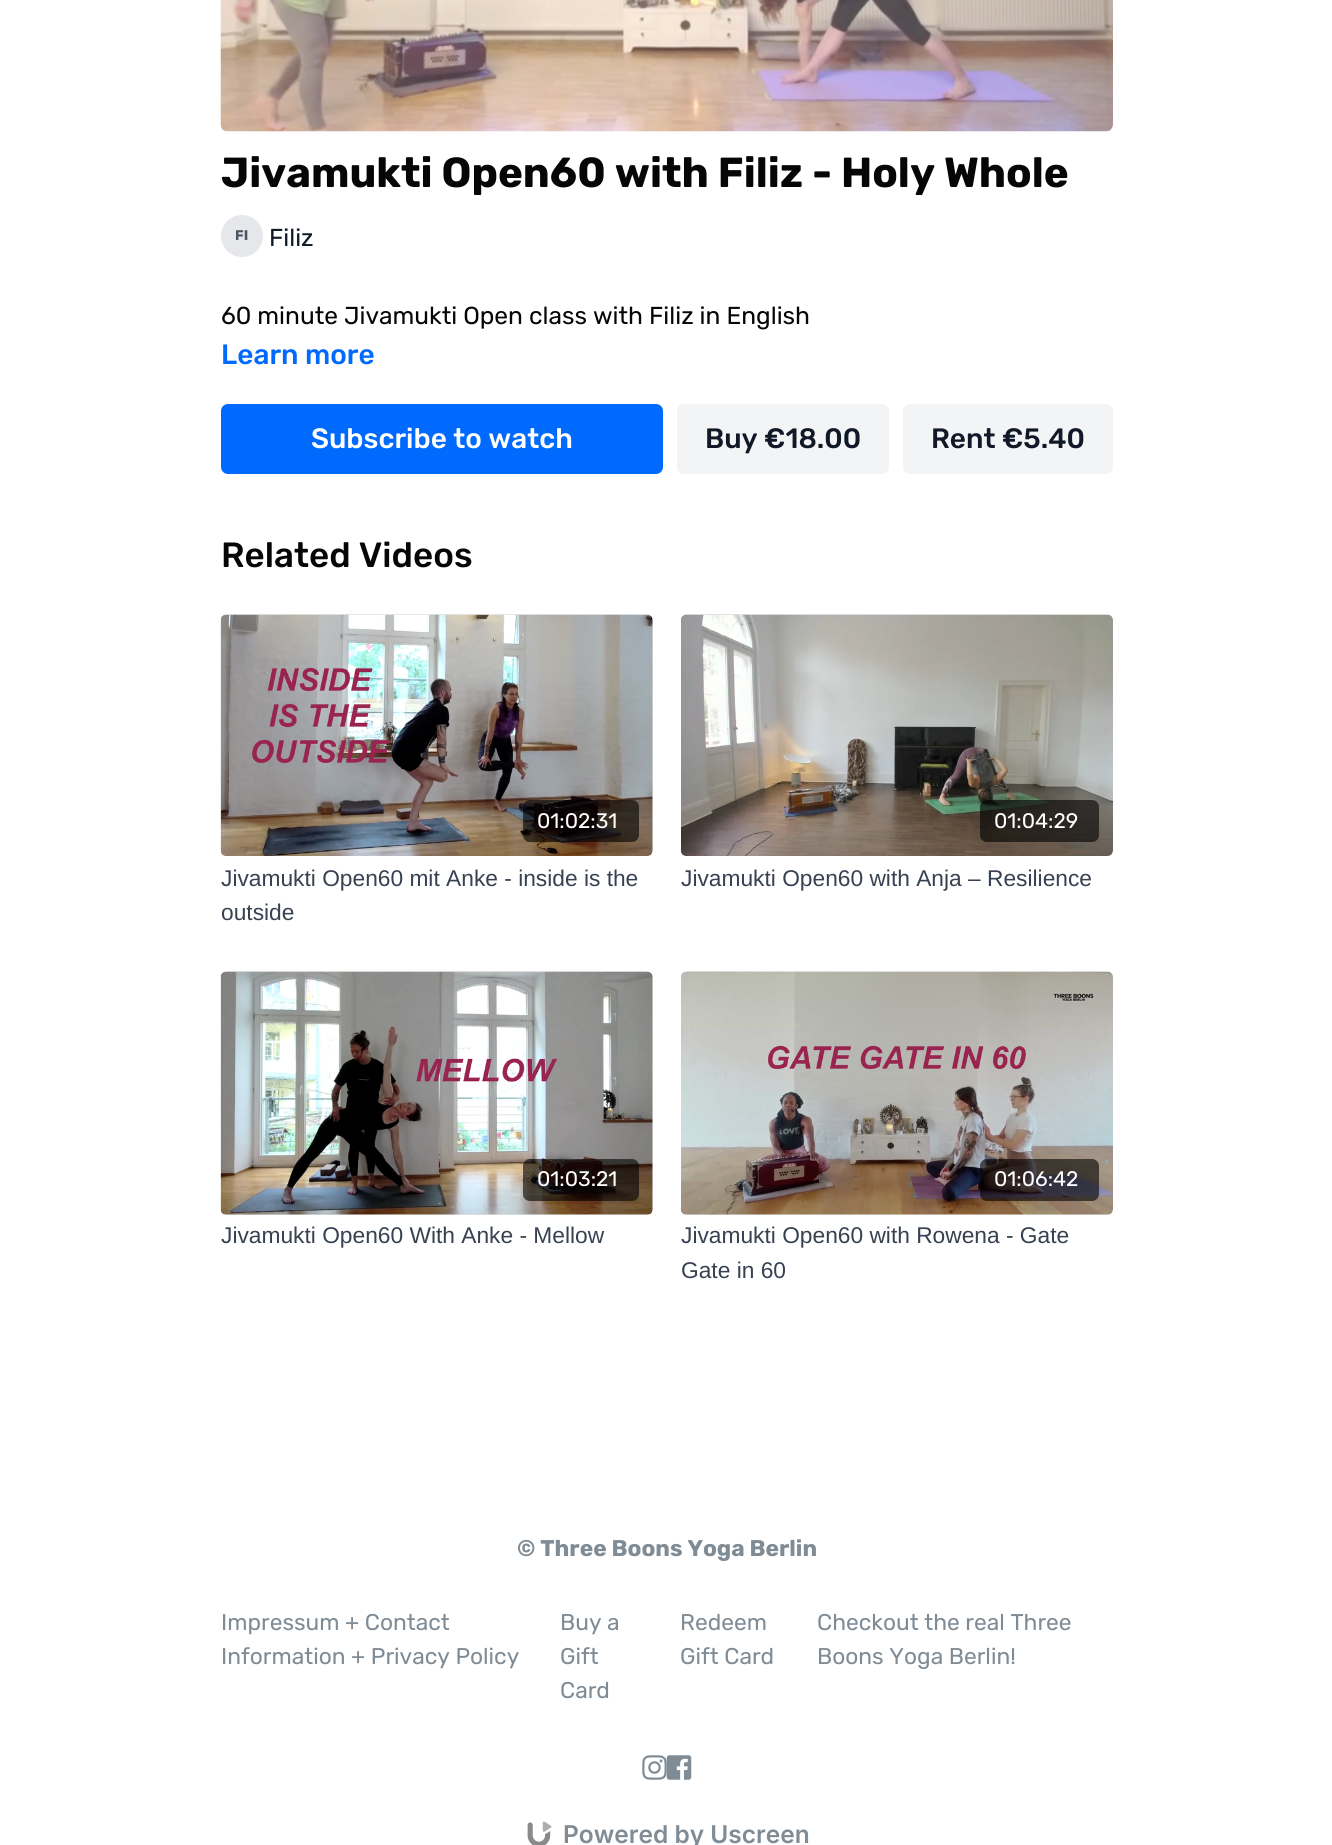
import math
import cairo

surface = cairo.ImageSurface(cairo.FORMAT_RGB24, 1332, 1845)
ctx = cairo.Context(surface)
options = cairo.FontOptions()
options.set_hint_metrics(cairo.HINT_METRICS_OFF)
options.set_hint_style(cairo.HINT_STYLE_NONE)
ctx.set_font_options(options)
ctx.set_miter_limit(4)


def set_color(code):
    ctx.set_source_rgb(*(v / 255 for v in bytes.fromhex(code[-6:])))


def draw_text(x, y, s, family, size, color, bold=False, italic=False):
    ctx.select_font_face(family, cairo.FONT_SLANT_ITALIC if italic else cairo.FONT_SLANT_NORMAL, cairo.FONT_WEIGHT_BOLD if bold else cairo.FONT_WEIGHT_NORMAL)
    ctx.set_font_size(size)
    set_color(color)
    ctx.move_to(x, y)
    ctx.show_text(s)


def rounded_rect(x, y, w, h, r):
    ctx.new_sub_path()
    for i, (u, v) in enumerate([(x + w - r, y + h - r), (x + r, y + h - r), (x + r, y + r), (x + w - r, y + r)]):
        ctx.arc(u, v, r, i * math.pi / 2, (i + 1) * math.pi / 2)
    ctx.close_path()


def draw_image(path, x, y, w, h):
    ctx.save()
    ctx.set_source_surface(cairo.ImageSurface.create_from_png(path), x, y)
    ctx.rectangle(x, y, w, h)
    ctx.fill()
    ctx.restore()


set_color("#ffffff")
ctx.paint()
draw_image("assets/img1.png", 220, 0, 893, 132)
draw_text(221, 187, "Jivamukti Open60 with Filiz - Holy Whole", "Rubik", 42, "#060606", bold=True)
set_color("#e5e7eb")
ctx.new_path()
ctx.arc(242, 236, 21, 0, 2 * math.pi)
ctx.fill()
draw_text(235, 240, "FI", "Rubik", 14, "#4b5563", bold=True)
draw_text(269, 246, "Filiz", "Rubik", 24.5, "#111827")
draw_text(221, 324, "60 minute Jivamukti Open class with Filiz in English", "Rubik", 24.5, "#060606")
draw_text(221, 364, "Learn more", "Rubik Medium", 28, "#006aff")
rounded_rect(221, 404, 442, 70, 7)
ctx.fill()
draw_text(311, 448, "Subscribe to watch", "Rubik Medium", 28, "#ffffff")
set_color("#f3f4f6")
rounded_rect(677, 404, 212, 70, 7)
ctx.fill()
draw_text(705, 448, "Buy €18.00", "Rubik Medium", 28, "#111827")
set_color("#f3f4f6")
rounded_rect(903, 404, 210, 70, 7)
ctx.fill()
draw_text(931, 448, "Rent €5.40", "Rubik Medium", 28, "#111827")
draw_text(221, 567, "Related Videos", "Rubik Medium", 35, "#060606")
gradient = cairo.LinearGradient(221, 735, 653, 735)
gradient.add_color_stop_rgba(0.08, 0.871, 0.871, 0.871, 1)
gradient.add_color_stop_rgba(0.18, 0.882, 0.882, 0.882, 1)
gradient.add_color_stop_rgba(0.33, 0.89, 0.89, 0.89, 1)
ctx.set_source(gradient)
rounded_rect(221, 614, 432, 242, 7)
ctx.fill()
draw_image("assets/img2.png", 220, 614, 433, 242)
ctx.set_source_rgba(0, 0, 0, 0.6)
rounded_rect(523, 800, 116, 42, 7)
ctx.fill()
draw_text(537, 828, "01:02:31", "Rubik", 21, "#ffffff")
draw_text(221, 886, "Jivamukti Open60 mit Anke - inside is the", "Liberation Sans", 22.75, "#374151")
draw_text(221, 920, "outside", "Liberation Sans", 22.75, "#374151")
gradient = cairo.LinearGradient(681, 735, 1113, 735)
gradient.add_color_stop_rgba(0.08, 0.871, 0.871, 0.871, 1)
gradient.add_color_stop_rgba(0.18, 0.882, 0.882, 0.882, 1)
gradient.add_color_stop_rgba(0.33, 0.89, 0.89, 0.89, 1)
ctx.set_source(gradient)
rounded_rect(681, 614, 432, 242, 7)
ctx.fill()
draw_image("assets/img3.png", 681, 614, 432, 242)
ctx.set_source_rgba(0, 0, 0, 0.6)
rounded_rect(980, 800, 119, 42, 7)
ctx.fill()
draw_text(994, 828, "01:04:29", "Rubik", 21, "#ffffff")
draw_text(681, 886, "Jivamukti Open60 with Anja – Resilience", "Liberation Sans", 22.75, "#374151")
gradient = cairo.LinearGradient(221, 1093, 653, 1093)
gradient.add_color_stop_rgba(0.08, 0.871, 0.871, 0.871, 1)
gradient.add_color_stop_rgba(0.18, 0.882, 0.882, 0.882, 1)
gradient.add_color_stop_rgba(0.33, 0.89, 0.89, 0.89, 1)
ctx.set_source(gradient)
rounded_rect(221, 971, 432, 244, 7)
ctx.fill()
draw_image("assets/img4.png", 220, 971, 433, 244)
ctx.set_source_rgba(0, 0, 0, 0.6)
rounded_rect(523, 1159, 116, 42, 7)
ctx.fill()
draw_text(537, 1186, "01:03:21", "Rubik", 21, "#ffffff")
draw_text(221, 1243, "Jivamukti Open60 With Anke - Mellow", "Liberation Sans", 22.75, "#374151")
gradient = cairo.LinearGradient(681, 1093, 1113, 1093)
gradient.add_color_stop_rgba(0.08, 0.871, 0.871, 0.871, 1)
gradient.add_color_stop_rgba(0.18, 0.882, 0.882, 0.882, 1)
gradient.add_color_stop_rgba(0.33, 0.89, 0.89, 0.89, 1)
ctx.set_source(gradient)
rounded_rect(681, 971, 432, 244, 7)
ctx.fill()
draw_image("assets/img5.png", 681, 971, 432, 244)
ctx.set_source_rgba(0, 0, 0, 0.6)
rounded_rect(980, 1159, 119, 42, 7)
ctx.fill()
draw_text(994, 1186, "01:06:42", "Rubik", 21, "#ffffff")
draw_text(681, 1243, "Jivamukti Open60 with Rowena - Gate", "Liberation Sans", 22.75, "#374151")
draw_text(681, 1278, "Gate in 60", "Liberation Sans", 22.75, "#374151")
draw_text(517, 1556, "© Three Boons Yoga Berlin", "Rubik", 22.75, "#7f8b95", bold=True)
draw_text(221, 1630, "Impressum + Contact", "Rubik", 22.75, "#7f8b95")
draw_text(221, 1664, "Information + Privacy Policy", "Rubik", 22.75, "#7f8b95")
draw_text(560, 1630, "Buy a", "Rubik", 22.75, "#7f8b95")
draw_text(560, 1664, "Gift", "Rubik", 22.75, "#7f8b95")
draw_text(560, 1698, "Card", "Rubik", 22.75, "#7f8b95")
draw_text(680, 1630, "Redeem", "Rubik", 22.75, "#7f8b95")
draw_text(680, 1664, "Gift Card", "Rubik", 22.75, "#7f8b95")
draw_text(817, 1630, "Checkout the real Three", "Rubik", 22.75, "#7f8b95")
draw_text(817, 1664, "Boons Yoga Berlin!", "Rubik", 22.75, "#7f8b95")
draw_image("assets/img6.png", 642, 1755, 25, 25)
draw_image("assets/img7.png", 666, 1755, 26, 25)
draw_image("assets/img8.png", 527, 1821, 25, 24)
draw_text(563, 1843, "Powered by Uscreen", "Inter SemiBold", 24.5, "#7f8b95")
surface.write_to_png("output.png")
